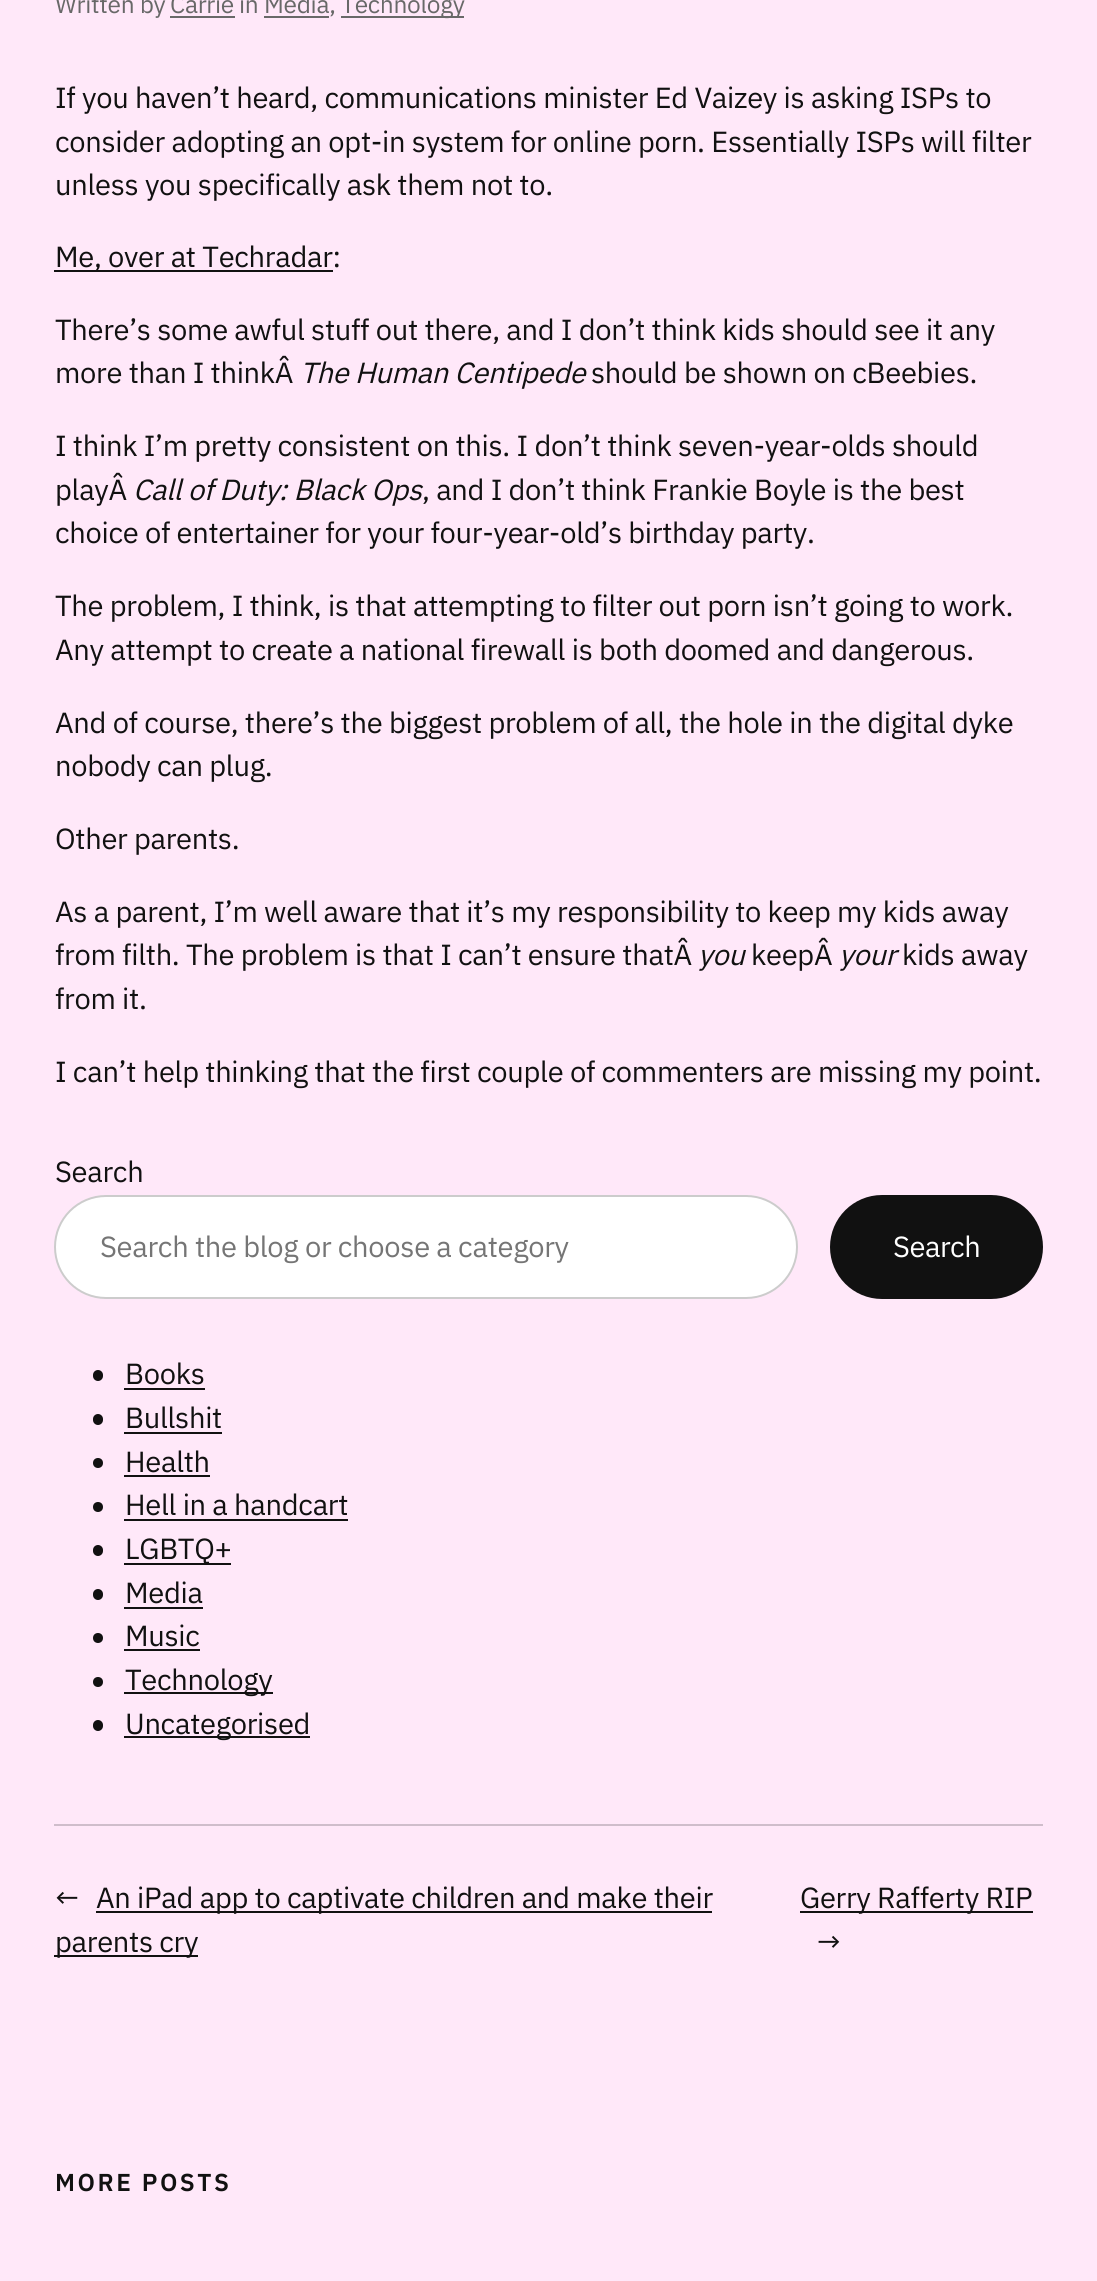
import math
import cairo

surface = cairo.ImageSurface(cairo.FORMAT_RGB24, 1097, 2281)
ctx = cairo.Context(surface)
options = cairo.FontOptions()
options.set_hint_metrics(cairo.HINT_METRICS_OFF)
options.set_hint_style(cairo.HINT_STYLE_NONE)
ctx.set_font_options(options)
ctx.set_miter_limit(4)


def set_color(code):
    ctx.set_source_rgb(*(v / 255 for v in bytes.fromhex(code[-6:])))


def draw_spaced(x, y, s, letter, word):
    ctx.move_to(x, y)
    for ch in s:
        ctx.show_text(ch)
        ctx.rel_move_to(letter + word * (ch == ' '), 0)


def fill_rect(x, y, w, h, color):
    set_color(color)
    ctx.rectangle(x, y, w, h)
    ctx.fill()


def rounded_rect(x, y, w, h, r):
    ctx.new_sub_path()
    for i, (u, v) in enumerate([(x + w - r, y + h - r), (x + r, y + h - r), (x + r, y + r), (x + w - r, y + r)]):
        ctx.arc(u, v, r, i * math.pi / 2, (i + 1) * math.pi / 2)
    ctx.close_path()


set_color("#ffe8f9")
ctx.paint()
ctx.select_font_face("IBM Plex Sans")
ctx.set_font_size(24.5)
set_color("#686868")
draw_spaced(55, 13, "Written by", -0.32, 0)
draw_spaced(170, 13, "Carrie", -0.32, 0)
fill_rect(170, 16, 65, 2, "#686868")
draw_spaced(239, 13, "in", -0.32, 0)
fill_rect(264, 16, 65, 2, "#686868")
draw_spaced(264, 13, "Media,", -0.32, 0)
fill_rect(341, 16, 123, 2, "#686868")
draw_spaced(341, 13, "Technology", -0.32, 0)
ctx.set_font_size(29.1)
set_color("#111111")
draw_spaced(55, 108, "If you haven’t heard, communications minister Ed Vaizey is asking ISPs to", -0.32, 0)
draw_spaced(55, 152, "consider adopting an opt-in system for online porn. Essentially ISPs will filter", -0.32, 0)
draw_spaced(55, 195, "unless you specifically ask them not to.", -0.32, 0)
fill_rect(54, 270, 279, 2, "#111111")
draw_spaced(55, 267, "Me, over at Techradar:", -0.32, 0)
draw_spaced(55, 340, "There’s some awful stuff out there, and I don’t think kids should see it any", -0.32, 0)
draw_spaced(55, 383, "more than I thinkÂ", -0.32, 0)
ctx.select_font_face("IBM Plex Sans", cairo.FONT_SLANT_ITALIC)
draw_spaced(300, 383, "The Human Centipede", -0.32, 0)
ctx.select_font_face("IBM Plex Sans")
draw_spaced(591, 383, "should be shown on cBeebies.", -0.32, 0)
draw_spaced(55, 456, "I think I’m pretty consistent on this. I don’t think seven-year-olds should", -0.32, 0)
draw_spaced(55, 500, "playÂ", -0.32, 0)
ctx.select_font_face("IBM Plex Sans", cairo.FONT_SLANT_ITALIC)
draw_spaced(133, 500, "Call of Duty: Black Ops", -0.32, 0)
ctx.select_font_face("IBM Plex Sans")
draw_spaced(422, 500, ", and I don’t think Frankie Boyle is the best", -0.32, 0)
draw_spaced(55, 543, "choice of entertainer for your four-year-old’s birthday party.", -0.32, 0)
draw_spaced(55, 616, "The problem, I think, is that attempting to filter out porn isn’t going to work.", -0.32, 0)
draw_spaced(55, 660, "Any attempt to create a national firewall is both doomed and dangerous.", -0.32, 0)
draw_spaced(55, 733, "And of course, there’s the biggest problem of all, the hole in the digital dyke", -0.32, 0)
draw_spaced(55, 776, "nobody can plug.", -0.32, 0)
draw_spaced(55, 849, "Other parents.", -0.32, 0)
draw_spaced(55, 922, "As a parent, I’m well aware that it’s my responsibility to keep my kids away", -0.32, 0)
draw_spaced(55, 965, "from filth. The problem is that I can’t ensure thatÂ", -0.32, 0)
ctx.select_font_face("IBM Plex Sans", cairo.FONT_SLANT_ITALIC)
draw_spaced(698, 965, "you", -0.32, 0)
ctx.select_font_face("IBM Plex Sans")
draw_spaced(751, 965, "keepÂ", -0.32, 0)
ctx.select_font_face("IBM Plex Sans", cairo.FONT_SLANT_ITALIC)
draw_spaced(839, 965, "your", -0.32, 0)
ctx.select_font_face("IBM Plex Sans")
draw_spaced(902, 965, "kids away", -0.32, 0)
draw_spaced(55, 1009, "from it.", -0.32, 0)
draw_spaced(55, 1082, "I can’t help thinking that the first couple of commenters are missing my point.", -0.32, 0)
draw_spaced(55, 1182, "Search", -0.32, 0)
set_color("#ffffff")
rounded_rect(54, 1195, 744, 104, 52)
ctx.fill()
rounded_rect(55, 1196, 742, 102, 51)
ctx.set_source_rgba(0, 0, 0, 0.2)
ctx.stroke()
set_color("#757575")
draw_spaced(100, 1257, "Search the blog or choose a category", -0.32, 0)
set_color("#111111")
rounded_rect(830, 1195, 213, 104, 52)
ctx.fill()
set_color("#ffffff")
draw_spaced(893, 1257, "Search", -0.5, 0)
set_color("#111111")
rounded_rect(93, 1370, 10, 11, 5)
ctx.fill()
draw_spaced(125, 1384, "Books", -0.32, 0)
fill_rect(124, 1388, 81, 2, "#111111")
rounded_rect(93, 1414, 10, 11, 5)
ctx.fill()
draw_spaced(125, 1428, "Bullshit", -0.32, 0)
fill_rect(124, 1432, 98, 2, "#111111")
ctx.new_path()
ctx.arc(98, 1463, 5, 0, 2 * math.pi)
ctx.fill()
draw_spaced(125, 1472, "Health", -0.32, 0)
fill_rect(124, 1475, 86, 2, "#111111")
ctx.new_path()
ctx.arc(98, 1507, 5, 0, 2 * math.pi)
ctx.fill()
draw_spaced(125, 1515, "Hell in a handcart", -0.32, 0)
fill_rect(124, 1519, 224, 2, "#111111")
rounded_rect(93, 1545, 10, 11, 5)
ctx.fill()
fill_rect(124, 1563, 107, 2, "#111111")
draw_spaced(125, 1559, "LGBTQ+", -0.32, 0)
rounded_rect(93, 1589, 10, 11, 5)
ctx.fill()
draw_spaced(125, 1603, "Media", -0.32, 0)
fill_rect(124, 1607, 79, 2, "#111111")
ctx.new_path()
ctx.arc(98, 1638, 5, 0, 2 * math.pi)
ctx.fill()
draw_spaced(125, 1646, "Music", -0.32, 0)
fill_rect(124, 1649, 76, 2, "#111111")
ctx.new_path()
ctx.arc(98, 1682, 5, 0, 2 * math.pi)
ctx.fill()
fill_rect(124, 1692, 149, 2, "#111111")
draw_spaced(125, 1690, "Technology", -0.32, 0)
rounded_rect(93, 1720, 10, 11, 5)
ctx.fill()
fill_rect(124, 1736, 186, 2, "#111111")
draw_spaced(125, 1734, "Uncategorised", -0.32, 0)
fill_rect(54, 1824, 989, 2, "#cfbdcb")
set_color("#111111")
draw_spaced(55, 1908, "←", -0.32, 0)
fill_rect(96, 1911, 616, 2, "#111111")
draw_spaced(96, 1908, "An iPad app to captivate children and make their", -0.32, 0)
fill_rect(54, 1955, 144, 2, "#111111")
draw_spaced(55, 1952, "parents cry", -0.32, 0)
fill_rect(800, 1911, 233, 2, "#111111")
draw_spaced(800, 1908, "Gerry Rafferty RIP", -0.32, 0)
draw_spaced(817, 1952, "→", -0.32, 0)
ctx.select_font_face("IBM Plex Sans SemiBold")
ctx.set_font_size(24.5)
draw_spaced(55, 2191, "MORE POSTS", 2.5, 0)
surface.write_to_png("output.png")
